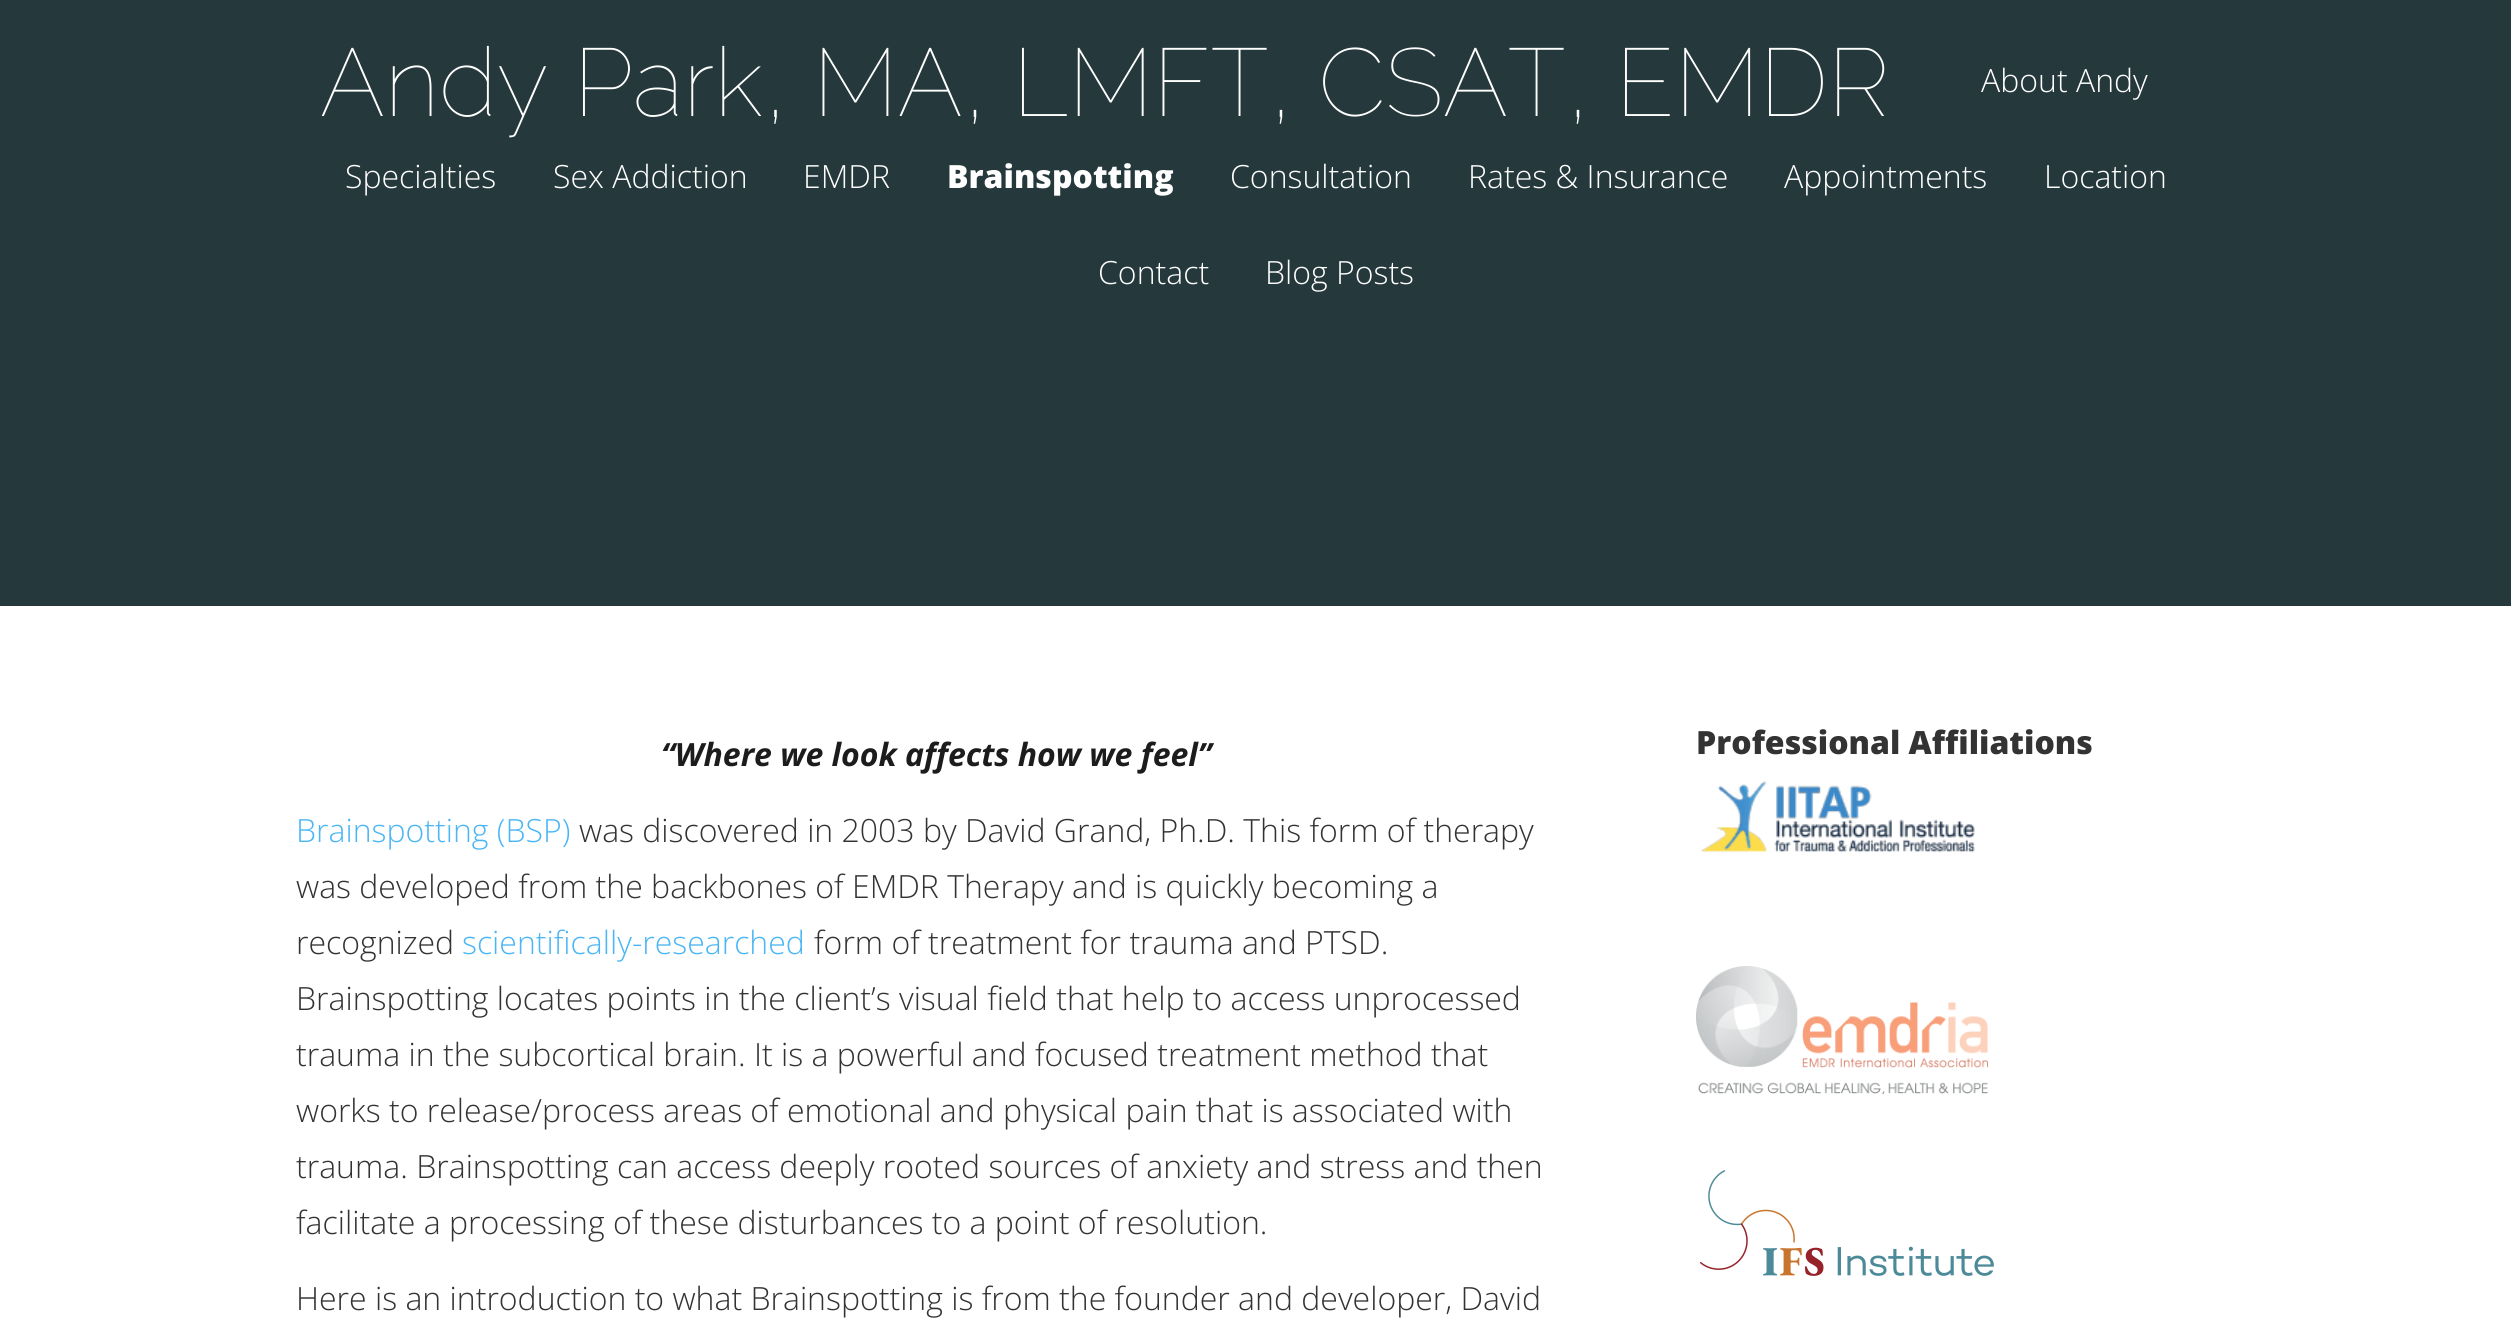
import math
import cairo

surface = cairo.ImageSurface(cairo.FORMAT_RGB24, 2511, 1318)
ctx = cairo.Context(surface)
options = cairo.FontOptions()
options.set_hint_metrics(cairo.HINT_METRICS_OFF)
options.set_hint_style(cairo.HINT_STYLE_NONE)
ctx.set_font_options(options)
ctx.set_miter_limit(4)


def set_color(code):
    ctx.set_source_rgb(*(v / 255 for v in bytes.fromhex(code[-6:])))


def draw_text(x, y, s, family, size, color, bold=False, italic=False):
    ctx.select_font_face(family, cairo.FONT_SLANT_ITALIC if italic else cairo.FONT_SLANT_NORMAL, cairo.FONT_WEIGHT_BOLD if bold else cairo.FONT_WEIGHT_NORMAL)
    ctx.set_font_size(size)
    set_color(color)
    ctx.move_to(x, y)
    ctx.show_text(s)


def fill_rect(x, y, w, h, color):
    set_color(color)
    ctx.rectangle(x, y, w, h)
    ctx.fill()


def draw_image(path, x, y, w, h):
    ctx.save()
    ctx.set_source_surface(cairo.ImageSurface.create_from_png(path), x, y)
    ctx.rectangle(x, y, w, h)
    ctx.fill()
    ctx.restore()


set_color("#25383b")
ctx.paint()
draw_text(320, 116, "Andy Park, MA, LMFT, CSAT, EMDR", "Raleway Thin", 96, "#ffffff")
draw_text(1981, 92, "About Andy", "Open Sans Light", 32, "#ffffff")
draw_text(345, 188, "Specialties", "Open Sans Light", 32, "#ffffff")
draw_text(553, 188, "Sex Addiction", "Open Sans Light", 32, "#ffffff")
draw_text(803, 188, "EMDR", "Open Sans Light", 32, "#ffffff")
draw_text(947, 188, "Brainspotting", "Open Sans ExtraBold", 32, "#ffffff")
draw_text(1230, 188, "Consultation", "Open Sans Light", 32, "#ffffff")
draw_text(1468, 188, "Rates & Insurance", "Open Sans Light", 32, "#ffffff")
draw_text(1784, 188, "Appointments", "Open Sans Light", 32, "#ffffff")
draw_text(2044, 188, "Location", "Open Sans Light", 32, "#ffffff")
draw_text(1098, 284, "Contact", "Open Sans Light", 32, "#ffffff")
draw_text(1265, 284, "Blog Posts", "Open Sans Light", 32, "#ffffff")
fill_rect(0, 606, 2511, 712, "#ffffff")
draw_text(661, 766, "“Where we look affects how we feel”", "Open Sans", 32, "#1c1c1c", bold=True, italic=True)
draw_text(296, 842, "Brainspotting (BSP)", "Open Sans Light", 32, "#4bb6f5")
draw_text(579, 842, "was discovered in 2003 by David Grand, Ph.D. This form of therapy", "Open Sans Light", 32, "#333333")
draw_text(296, 898, "was developed from the backbones of EMDR Therapy and is quickly becoming a", "Open Sans Light", 32, "#333333")
draw_text(296, 954, "recognized", "Open Sans Light", 32, "#333333")
draw_text(462, 954, "scientifically-researched", "Open Sans Light", 32, "#4bb6f5")
draw_text(814, 954, "form of treatment for trauma and PTSD.", "Open Sans Light", 32, "#333333")
draw_text(296, 1010, "Brainspotting locates points in the client’s visual field that help to access unprocessed", "Open Sans Light", 32, "#333333")
draw_text(296, 1066, "trauma in the subcortical brain. It is a powerful and focused treatment method that", "Open Sans Light", 32, "#333333")
draw_text(296, 1122, "works to release/process areas of emotional and physical pain that is associated with", "Open Sans Light", 32, "#333333")
draw_text(296, 1178, "trauma. Brainspotting can access deeply rooted sources of anxiety and stress and then", "Open Sans Light", 32, "#333333")
draw_text(296, 1234, "facilitate a processing of these disturbances to a point of resolution.", "Open Sans Light", 32, "#333333")
draw_text(296, 1310, "Here is an introduction to what Brainspotting is from the founder and developer, David", "Open Sans Light", 32, "#333333")
draw_text(1696, 754, "Professional Affiliations", "Open Sans ExtraBold", 32, "#333333")
draw_image("assets/img1.png", 1701, 781, 274, 72)
draw_image("assets/img2.png", 1696, 966, 292, 128)
draw_image("assets/img3.png", 1700, 1170, 294, 106)
surface.write_to_png("output.png")
